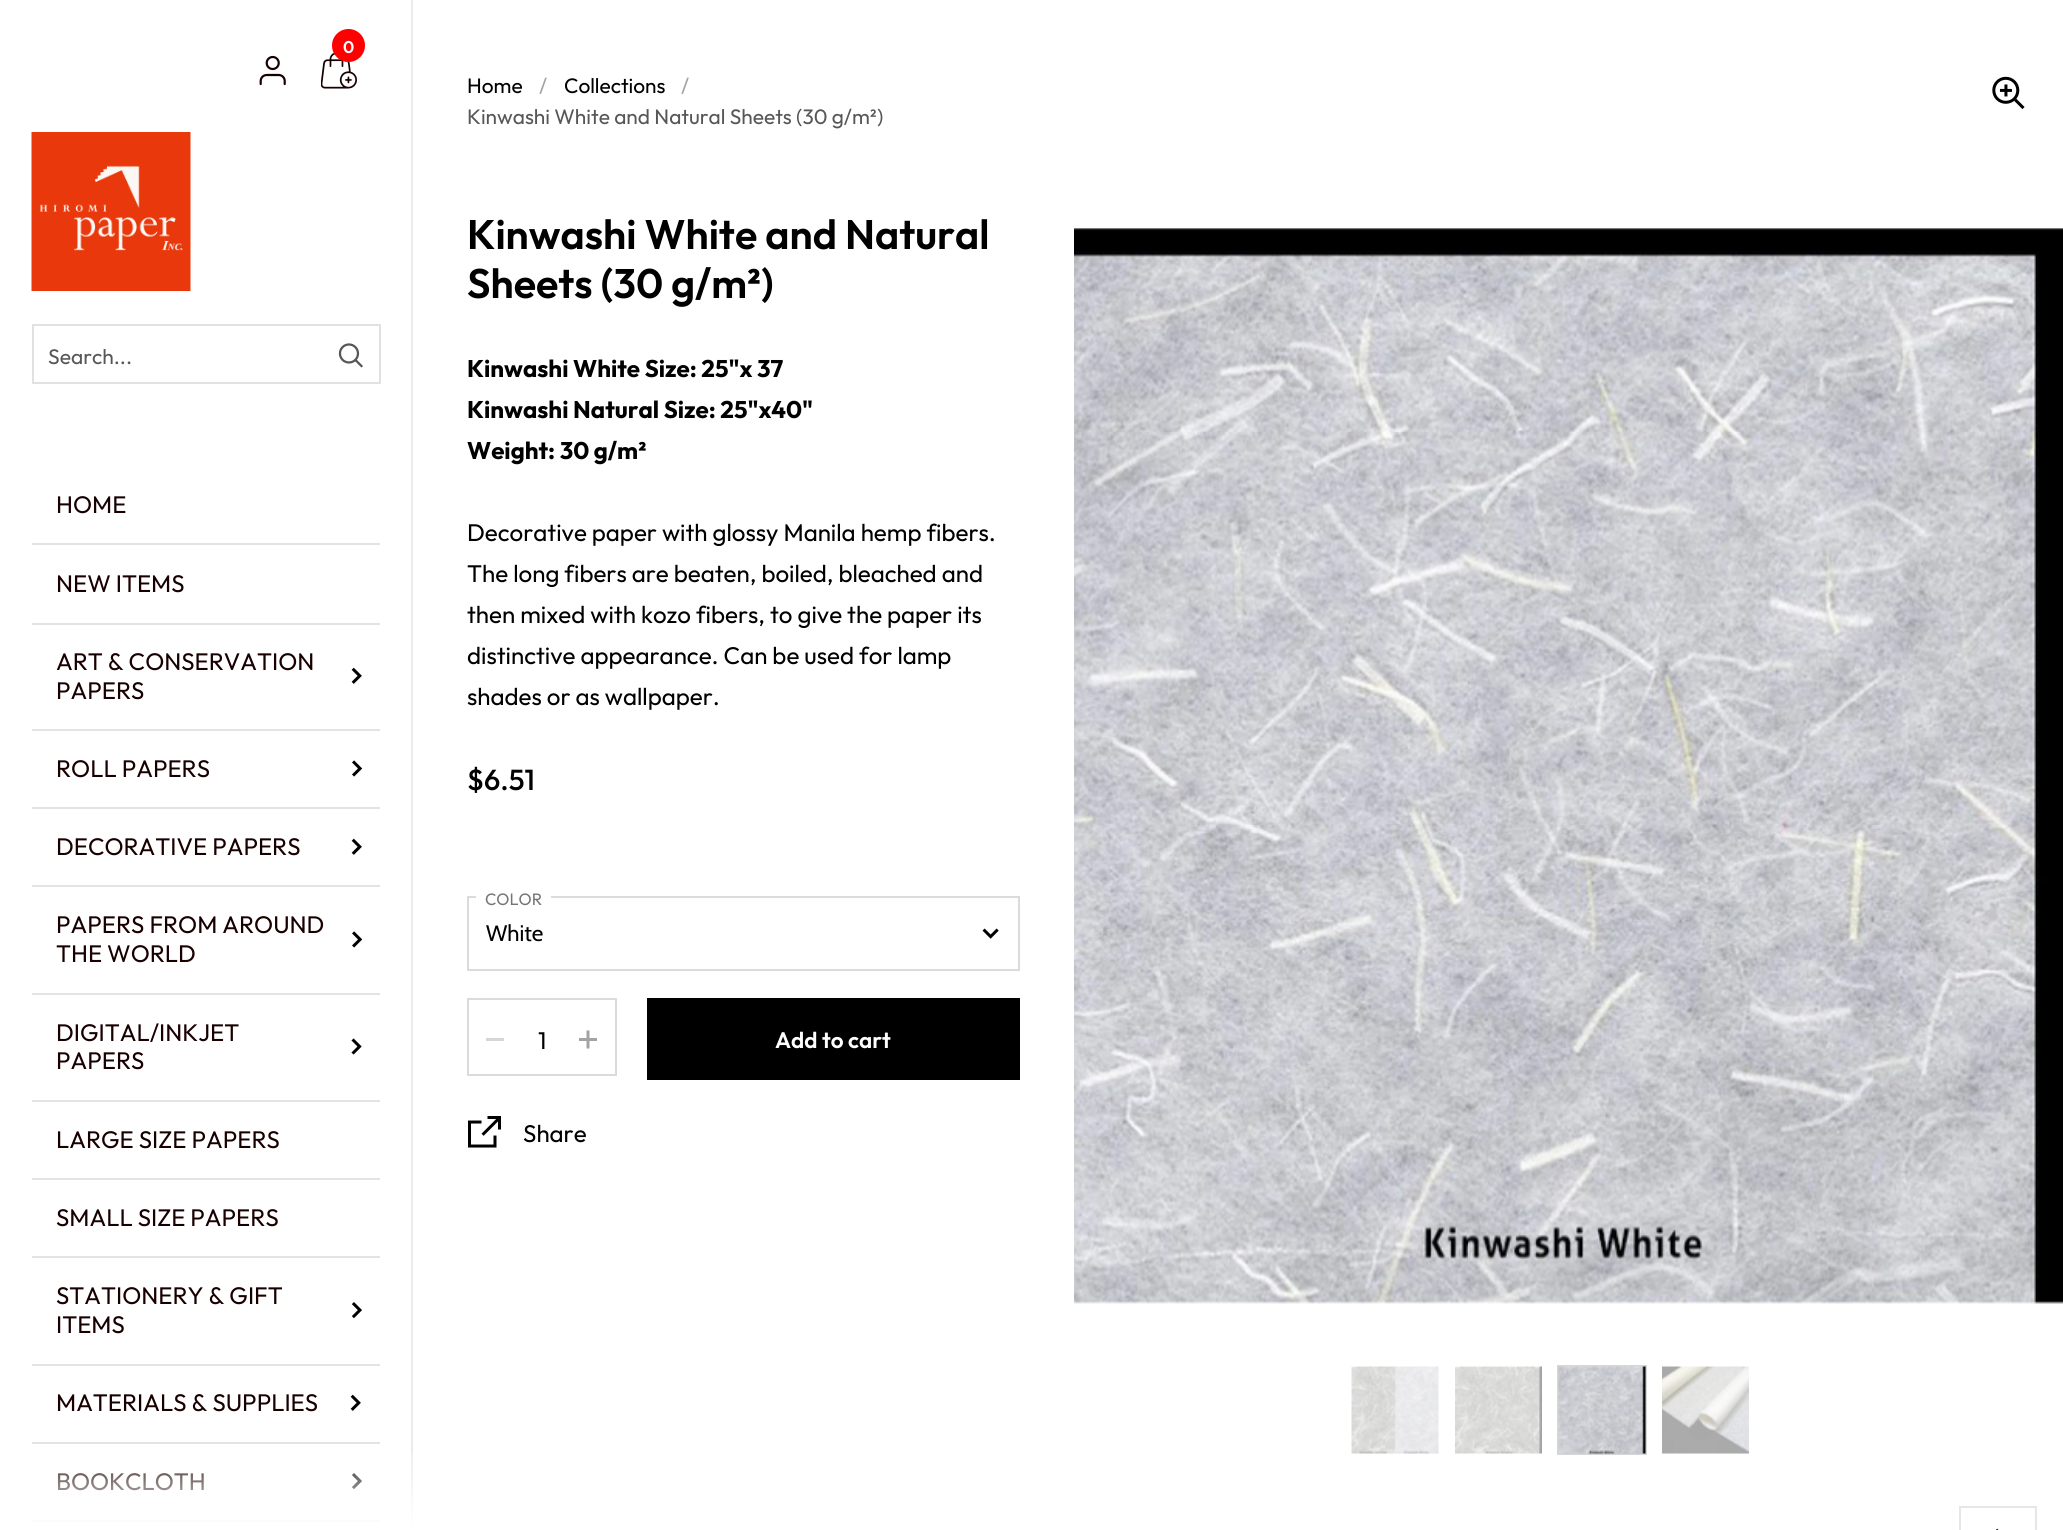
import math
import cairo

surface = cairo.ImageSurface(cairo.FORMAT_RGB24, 2063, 1530)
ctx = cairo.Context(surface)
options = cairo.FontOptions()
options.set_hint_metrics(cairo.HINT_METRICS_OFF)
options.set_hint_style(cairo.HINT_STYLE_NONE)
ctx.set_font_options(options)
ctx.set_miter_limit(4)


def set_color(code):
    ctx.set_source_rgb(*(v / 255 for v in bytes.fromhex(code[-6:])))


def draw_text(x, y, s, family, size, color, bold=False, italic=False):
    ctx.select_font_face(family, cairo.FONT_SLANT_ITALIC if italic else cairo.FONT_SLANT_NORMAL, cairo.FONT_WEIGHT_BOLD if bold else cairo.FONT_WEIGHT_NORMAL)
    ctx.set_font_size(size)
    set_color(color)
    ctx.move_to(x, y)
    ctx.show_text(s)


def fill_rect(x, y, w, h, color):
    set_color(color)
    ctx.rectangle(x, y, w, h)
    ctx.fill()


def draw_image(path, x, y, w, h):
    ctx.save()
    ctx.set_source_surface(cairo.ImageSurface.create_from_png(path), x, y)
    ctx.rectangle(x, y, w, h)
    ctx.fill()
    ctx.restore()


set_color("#ffffff")
ctx.paint()
fill_rect(411, 0, 2, 1530, "#ebebeb")
draw_image("assets/img1.png", 321, 53, 36, 36)
set_color("#ff0000")
ctx.arc(348.5, 45.5, 16.5, 0, 2 * math.pi)
ctx.fill()
draw_text(343, 53, "0", "Outfit SemiBold", 17, "#ffffff")
draw_image("assets/img2.png", 259, 55, 27, 31)
draw_image("assets/img3.png", 31, 132, 160, 159)
ctx.rectangle(33, 325, 347, 58)
set_color("#e1e1e1")
ctx.stroke()
draw_text(48, 364, "Search...", "Outfit", 21, "#575757")
draw_image("assets/img4.png", 338, 343, 25, 25)
fill_rect(32, 543, 348, 2, "#e3e3e3")
draw_text(56, 513, "HOME", "Outfit", 24, "#190000")
fill_rect(32, 623, 348, 2, "#e3e3e3")
draw_text(56, 592, "NEW ITEMS", "Outfit", 24, "#190000")
fill_rect(32, 729, 348, 2, "#e3e3e3")
draw_text(56, 670, "ART & CONSERVATION", "Outfit", 24, "#190000")
draw_text(56, 699, "PAPERS", "Outfit", 24, "#190000")
draw_image("assets/img5.png", 351, 667, 11, 17)
fill_rect(32, 807, 348, 2, "#e3e3e3")
draw_text(56, 777, "ROLL PAPERS", "Outfit", 24, "#190000")
draw_image("assets/img6.png", 352, 760, 11, 17)
fill_rect(32, 885, 348, 2, "#e3e3e3")
draw_text(56, 855, "DECORATIVE PAPERS", "Outfit", 24, "#190000")
draw_image("assets/img7.png", 351, 838, 11, 17)
fill_rect(32, 993, 348, 2, "#e3e3e3")
draw_text(56, 933, "PAPERS FROM AROUND", "Outfit", 24, "#190000")
draw_text(56, 962, "THE WORLD", "Outfit", 24, "#190000")
draw_image("assets/img8.png", 352, 931, 11, 17)
fill_rect(32, 1100, 348, 2, "#e3e3e3")
draw_text(56, 1041, "DIGITAL/INKJET", "Outfit", 24, "#190000")
draw_text(56, 1069, "PAPERS", "Outfit", 24, "#190000")
draw_image("assets/img9.png", 351, 1038, 11, 17)
fill_rect(32, 1178, 348, 2, "#e3e3e3")
draw_text(56, 1148, "LARGE SIZE PAPERS", "Outfit", 24, "#190000")
fill_rect(32, 1256, 348, 2, "#e3e3e3")
draw_text(56, 1226, "SMALL SIZE PAPERS", "Outfit", 24, "#190000")
fill_rect(32, 1364, 348, 2, "#e3e3e3")
draw_text(56, 1304, "STATIONERY & GIFT", "Outfit", 24, "#190000")
draw_text(56, 1333, "ITEMS", "Outfit", 24, "#190000")
draw_image("assets/img10.png", 351, 1302, 11, 17)
fill_rect(32, 1442, 348, 2, "#e3e3e3")
draw_text(56, 1411, "MATERIALS & SUPPLIES", "Outfit", 24, "#190000")
draw_image("assets/img11.png", 350, 1394, 11, 17)
fill_rect(32, 1520, 348, 2, "#e3e3e3")
draw_text(56, 1490, "BOOKCLOTH", "Outfit", 24, "#190000")
draw_image("assets/img12.png", 352, 1473, 10, 16)
gradient = cairo.LinearGradient(206, 1530, 206, 1440)
gradient.add_color_stop_rgba(0, 1, 1, 1, 1)
gradient.add_color_stop_rgba(1, 1, 1, 1, 0)
ctx.set_source(gradient)
ctx.rectangle(32, 1452, 381, 78)
ctx.fill()
draw_text(467, 93, "Home", "Outfit", 20.9, "#000000")
draw_text(539, 93, "/", "Outfit", 20.9, "#a3a3a3")
draw_text(564, 93, "Collections", "Outfit", 20.9, "#000000")
draw_text(681, 93, "/", "Outfit", 20.9, "#a3a3a3")
draw_text(467, 124, "Kinwashi White and Natural Sheets (30 g/m²)", "Outfit", 20.9, "#575757")
draw_text(467, 249, "Kinwashi White and Natural", "Outfit SemiBold", 41.25, "#000000")
draw_text(467, 298, "Sheets (30 g/m²)", "Outfit SemiBold", 41.25, "#000000")
draw_text(467, 377, "Kinwashi White Size: 25\"x 37", "Outfit", 24.1, "#000000", bold=True)
draw_text(467, 418, "Kinwashi Natural Size: 25\"x40\"", "Outfit", 24.1, "#000000", bold=True)
draw_text(467, 459, "Weight: 30 g/m²", "Outfit", 24.1, "#000000", bold=True)
draw_text(467, 541, "Decorative paper with glossy Manila hemp fibers.", "Outfit", 24.1, "#000000")
draw_text(467, 582, "The long fibers are beaten, boiled, bleached and", "Outfit", 24.1, "#000000")
draw_text(467, 623, "then mixed with kozo fibers, to give the paper its", "Outfit", 24.1, "#000000")
draw_text(467, 664, "distinctive appearance. Can be used for lamp", "Outfit", 24.1, "#000000")
draw_text(467, 705, "shades or as wallpaper.", "Outfit", 24.1, "#000000")
draw_text(467, 790, "$6.51", "Outfit Medium", 29, "#000000")
draw_image("assets/img13.png", 982, 928, 17, 11)
ctx.rectangle(468, 897, 551, 73)
set_color("#dbdbdb")
ctx.stroke()
fill_rect(476, 896, 75, 2, "#ffffff")
draw_text(485, 905, "COLOR", "Outfit", 16.5, "#757575")
draw_text(486, 941, "White", "Cabin", 22.5, "#000000")
ctx.rectangle(468, 999, 148, 76)
set_color("#dbdbdb")
ctx.stroke()
fill_rect(486, 1038, 18, 3, "#d6d6d6")
draw_text(538, 1049, "1", "Outfit", 24.1, "#000000")
draw_image("assets/img14.png", 579, 1030, 18, 19)
fill_rect(647, 998, 373, 82, "#000000")
draw_text(775, 1048, "Add to cart", "Outfit SemiBold", 22.5, "#ffffff")
draw_image("assets/img15.png", 468, 1116, 33, 32)
draw_text(523, 1142, "Share", "Outfit", 24.1, "#000000")
draw_image("assets/img16.png", 1992, 76, 33, 33)
draw_image("assets/img17.png", 1074, 228, 989, 1076)
fill_rect(1352, 1367, 87, 87, "#fcfcfc")
draw_image("assets/img18.png", 1351, 1366, 88, 88)
fill_rect(1455, 1367, 87, 87, "#fcfcfc")
draw_image("assets/img19.png", 1455, 1366, 87, 88)
ctx.rectangle(1558, 1366, 88, 88)
set_color("#d6d6d6")
ctx.stroke()
ctx.set_source_rgba(0, 0, 0, 0.03)
ctx.rectangle(1559, 1367, 87, 87)
ctx.fill()
draw_image("assets/img20.png", 1558, 1366, 88, 88)
fill_rect(1662, 1367, 87, 87, "#fcfcfc")
draw_image("assets/img21.png", 1662, 1366, 87, 88)
ctx.rectangle(1960, 1507, 76, 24)
set_color("#e7e7e7")
ctx.stroke()
draw_image("assets/img22.png", 1996, 1528, 3, 2)
surface.write_to_png("output.png")
